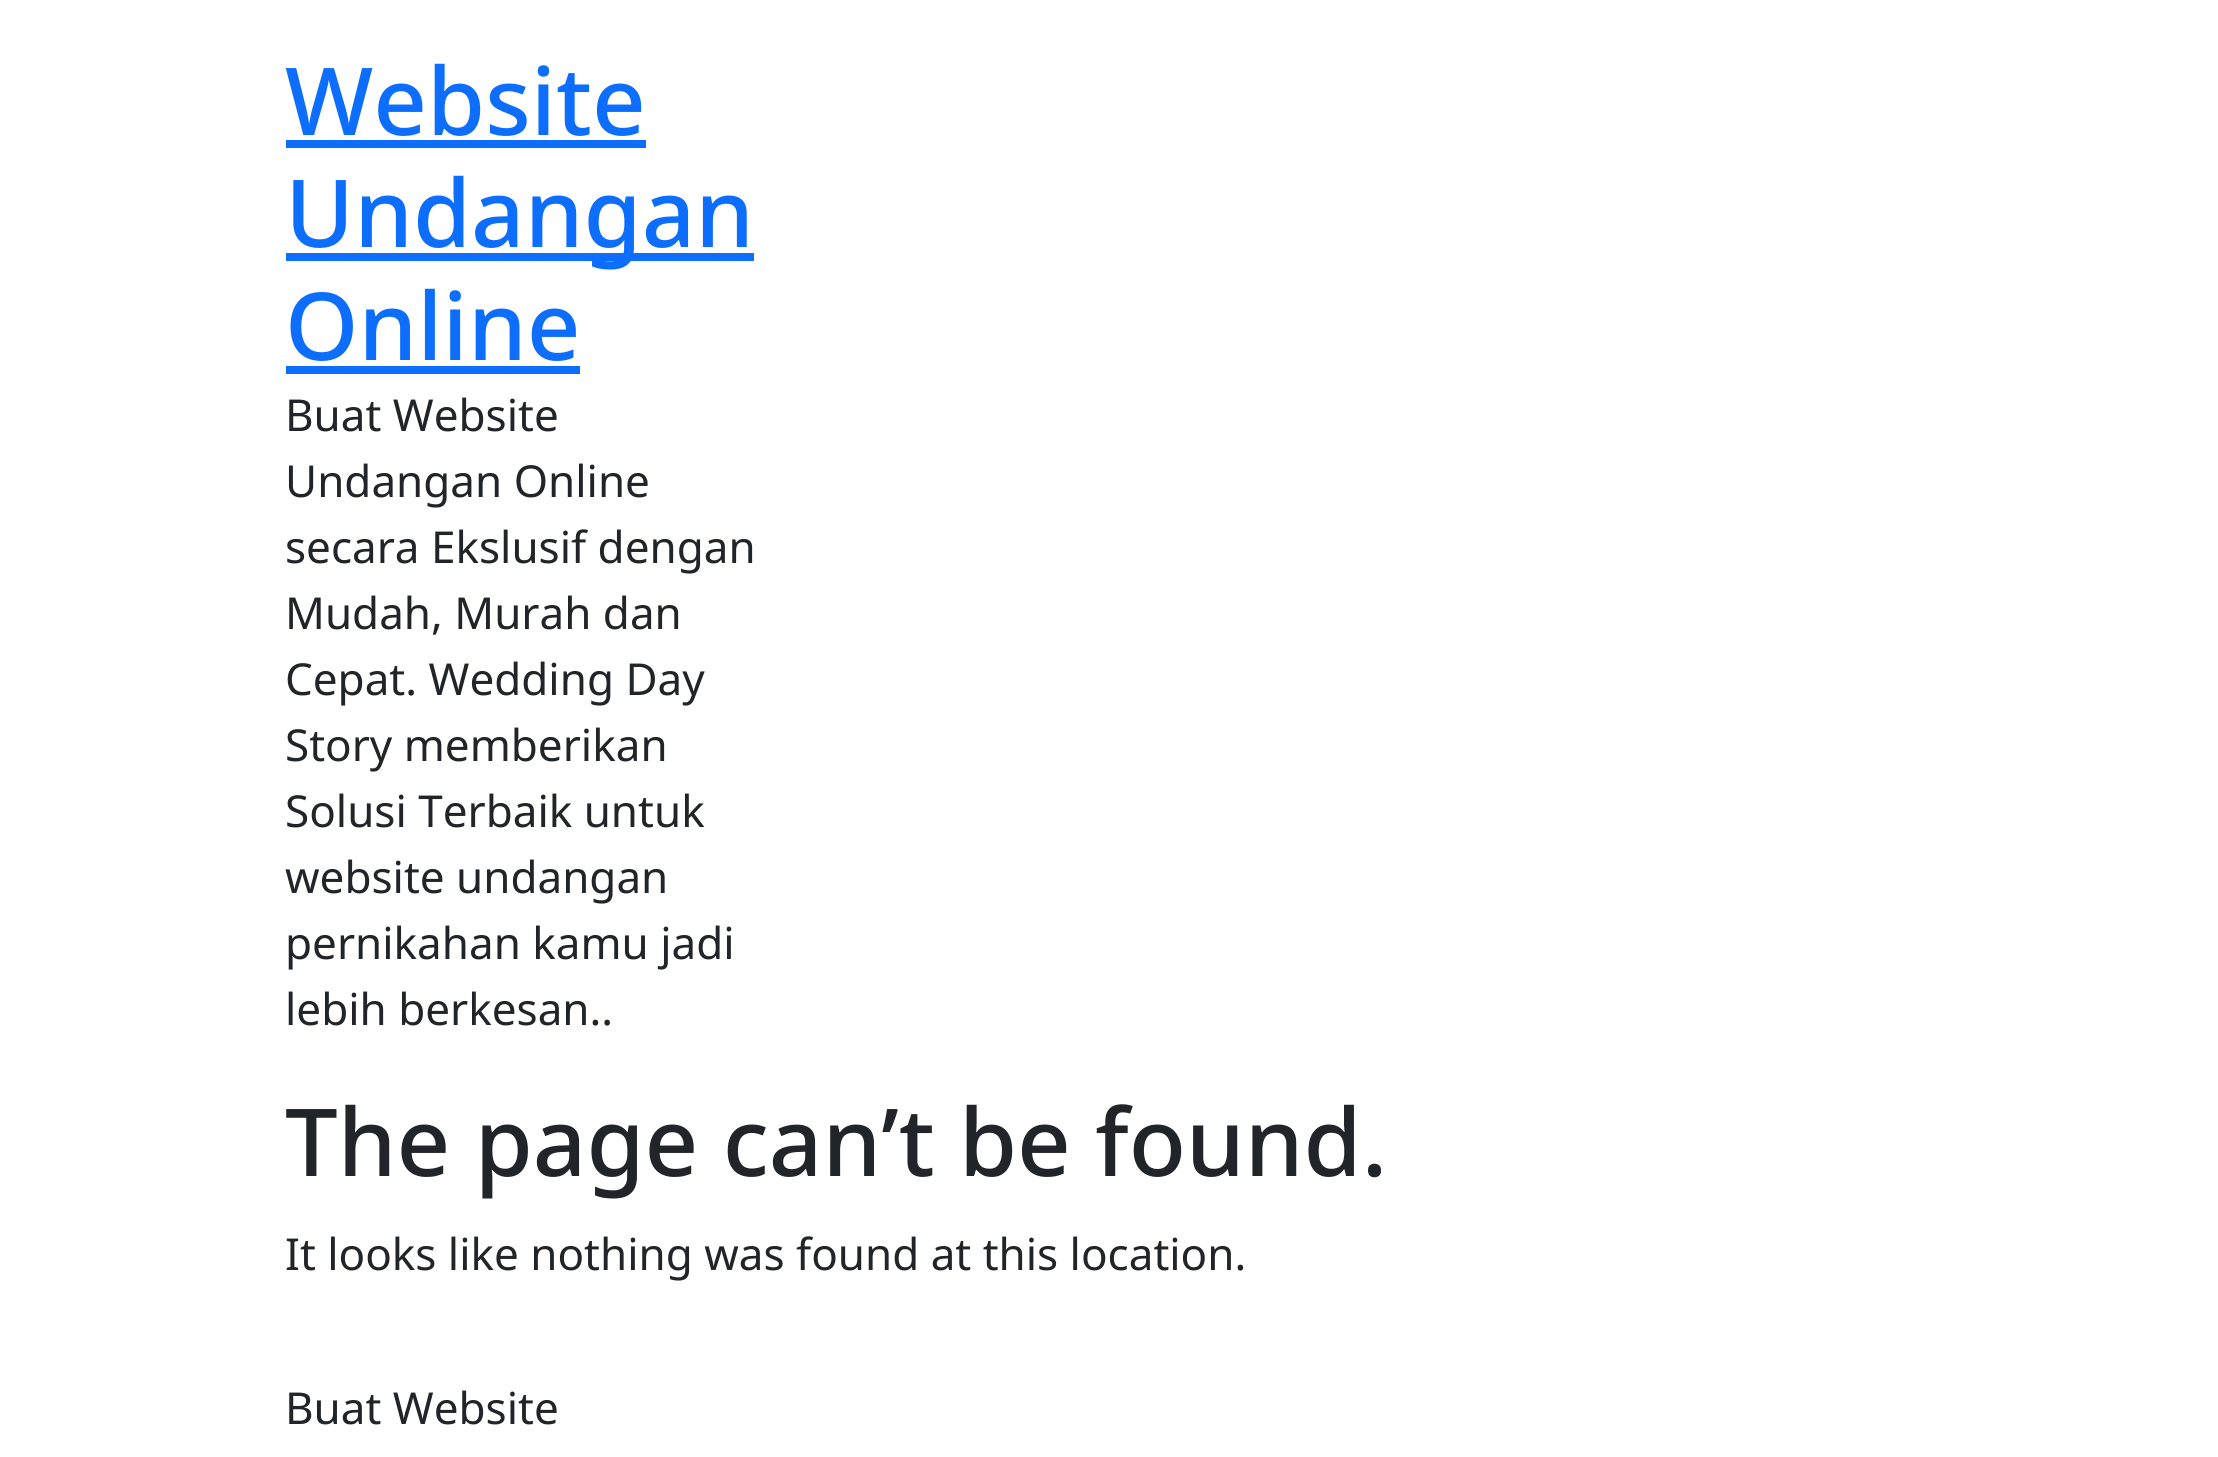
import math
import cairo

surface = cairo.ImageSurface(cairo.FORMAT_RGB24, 2218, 1457)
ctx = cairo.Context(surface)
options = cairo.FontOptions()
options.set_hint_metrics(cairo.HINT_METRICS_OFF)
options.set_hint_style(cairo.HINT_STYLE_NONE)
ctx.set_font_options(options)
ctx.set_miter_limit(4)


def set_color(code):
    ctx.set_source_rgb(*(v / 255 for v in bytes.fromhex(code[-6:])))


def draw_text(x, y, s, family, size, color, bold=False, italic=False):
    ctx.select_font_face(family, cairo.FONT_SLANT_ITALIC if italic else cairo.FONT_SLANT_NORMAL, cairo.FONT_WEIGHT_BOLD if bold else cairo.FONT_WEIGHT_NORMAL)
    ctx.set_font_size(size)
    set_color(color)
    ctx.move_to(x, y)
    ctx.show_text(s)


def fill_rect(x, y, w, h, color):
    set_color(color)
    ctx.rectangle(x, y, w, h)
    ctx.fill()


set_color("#ffffff")
ctx.paint()
draw_text(285, 135, "Website", "Noto Sans Medium", 93.75, "#0d6efd")
fill_rect(286, 140, 360, 8, "#0d6efd")
fill_rect(286, 253, 468, 8, "#0d6efd")
draw_text(285, 247, "Undangan", "Noto Sans Medium", 93.75, "#0d6efd")
draw_text(285, 360, "Online", "Noto Sans Medium", 93.75, "#0d6efd")
fill_rect(286, 366, 294, 8, "#0d6efd")
draw_text(285, 431, "Buat Website", "Noto Sans", 44, "#212529")
draw_text(285, 497, "Undangan Online", "Noto Sans", 44, "#212529")
draw_text(285, 563, "secara Ekslusif dengan", "Noto Sans", 44, "#212529")
draw_text(285, 629, "Mudah, Murah dan", "Noto Sans", 44, "#212529")
draw_text(285, 695, "Cepat. Wedding Day", "Noto Sans", 44, "#212529")
draw_text(285, 761, "Story memberikan", "Noto Sans", 44, "#212529")
draw_text(285, 827, "Solusi Terbaik untuk", "Noto Sans", 44, "#212529")
draw_text(285, 893, "website undangan", "Noto Sans", 44, "#212529")
draw_text(285, 959, "pernikahan kamu jadi", "Noto Sans", 44, "#212529")
draw_text(285, 1025, "lebih berkesan..", "Noto Sans", 44, "#212529")
draw_text(285, 1176, "The page can’t be found.", "Noto Sans Medium", 93.75, "#212529")
draw_text(285, 1270, "It looks like nothing was found at this location.", "Noto Sans", 44, "#212529")
draw_text(285, 1424, "Buat Website", "Noto Sans", 44, "#212529")
surface.write_to_png("output.png")
